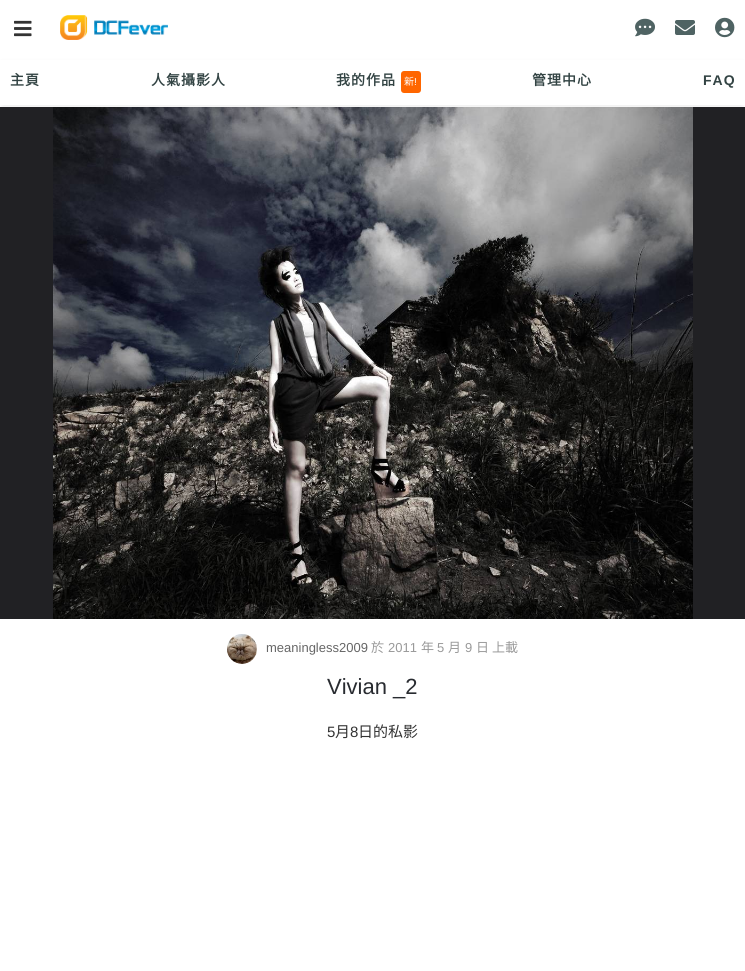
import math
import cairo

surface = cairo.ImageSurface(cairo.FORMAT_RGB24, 745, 971)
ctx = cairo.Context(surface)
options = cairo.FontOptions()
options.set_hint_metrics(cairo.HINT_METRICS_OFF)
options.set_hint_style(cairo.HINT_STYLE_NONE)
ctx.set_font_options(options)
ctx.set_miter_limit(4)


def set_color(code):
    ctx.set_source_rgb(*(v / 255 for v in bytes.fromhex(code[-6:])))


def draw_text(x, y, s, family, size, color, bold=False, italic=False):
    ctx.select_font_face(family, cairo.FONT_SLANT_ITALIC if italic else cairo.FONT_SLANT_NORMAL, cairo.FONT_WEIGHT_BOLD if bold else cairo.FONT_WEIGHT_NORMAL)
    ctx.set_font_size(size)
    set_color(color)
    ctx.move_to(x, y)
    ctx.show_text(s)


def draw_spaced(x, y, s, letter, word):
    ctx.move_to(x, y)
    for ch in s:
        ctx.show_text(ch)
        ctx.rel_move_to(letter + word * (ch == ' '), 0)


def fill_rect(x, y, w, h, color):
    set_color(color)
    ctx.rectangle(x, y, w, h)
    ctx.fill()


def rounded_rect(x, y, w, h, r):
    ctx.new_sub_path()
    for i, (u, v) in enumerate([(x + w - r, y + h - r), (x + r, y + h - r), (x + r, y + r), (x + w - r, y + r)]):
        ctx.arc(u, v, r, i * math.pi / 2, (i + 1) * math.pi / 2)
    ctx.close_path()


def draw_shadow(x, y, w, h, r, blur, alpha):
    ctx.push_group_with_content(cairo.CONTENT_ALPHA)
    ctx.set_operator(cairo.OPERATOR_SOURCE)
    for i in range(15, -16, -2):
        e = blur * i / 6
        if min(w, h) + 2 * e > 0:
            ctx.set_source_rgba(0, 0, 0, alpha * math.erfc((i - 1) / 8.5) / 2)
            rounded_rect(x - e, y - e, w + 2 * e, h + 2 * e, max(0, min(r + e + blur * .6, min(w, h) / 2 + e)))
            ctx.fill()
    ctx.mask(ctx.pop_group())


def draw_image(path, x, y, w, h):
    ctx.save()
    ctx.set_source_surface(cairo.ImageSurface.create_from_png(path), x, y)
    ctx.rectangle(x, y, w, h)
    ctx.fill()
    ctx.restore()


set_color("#ffffff")
ctx.paint()
draw_image("assets/img1.png", 14, 20, 18, 17)
draw_image("assets/img2.png", 60, 15, 108, 25)
draw_image("assets/img3.png", 635, 18, 20, 19)
draw_image("assets/img4.png", 675, 20, 20, 15)
draw_image("assets/img5.png", 715, 17, 20, 21)
set_color("#000000")
draw_shadow(2, 62, 741, 46, 0, 2.5, 0.06)
fill_rect(0, 60, 745, 45, "#ffffff")
ctx.select_font_face("Noto Sans CJK HK", cairo.FONT_SLANT_NORMAL, cairo.FONT_WEIGHT_BOLD)
ctx.set_font_size(14)
set_color("#334444")
draw_spaced(10, 85, "主頁", 1, 0)
draw_spaced(151, 85, "人氣攝影人", 1, 0)
draw_spaced(336, 85, "我的作品", 1, 0)
set_color("#ff6600")
rounded_rect(401, 71, 20, 22, 3)
ctx.fill()
ctx.select_font_face("Noto Sans CJK HK")
ctx.set_font_size(10)
set_color("#ffffff")
draw_spaced(404, 85, "新", 1, 0)
ctx.select_font_face("Liberation Sans")
draw_spaced(414, 85, "!", 1, 0)
ctx.select_font_face("Noto Sans CJK HK", cairo.FONT_SLANT_NORMAL, cairo.FONT_WEIGHT_BOLD)
ctx.set_font_size(14)
set_color("#334444")
draw_spaced(532, 85, "管理中心", 1, 0)
ctx.select_font_face("Liberation Sans", cairo.FONT_SLANT_NORMAL, cairo.FONT_WEIGHT_BOLD)
draw_spaced(703, 85, "FAQ", 1, 0)
fill_rect(0, 107, 745, 512, "#212124")
draw_image("assets/img6.png", 53, 107, 640, 512)
draw_image("assets/img7.png", 227, 634, 30, 30)
draw_text(266, 652, "meaningless2009", "Liberation Sans", 13, "#666666")
draw_text(371, 652, "於", "Noto Sans CJK HK", 13, "#999999")
draw_text(388, 652, "2011", "Liberation Sans", 13, "#999999")
draw_text(421, 652, "年", "Noto Sans CJK HK", 13, "#999999")
draw_text(437, 652, "5", "Liberation Sans", 13, "#999999")
draw_text(448, 652, "月", "Noto Sans CJK HK", 13, "#999999")
draw_text(465, 652, "9", "Liberation Sans", 13, "#999999")
draw_text(476, 652, "日 上載", "Noto Sans CJK HK", 13, "#999999")
draw_text(327, 694, "Vivian _2", "Liberation Sans", 22, "#282b30")
draw_text(327, 737, "5", "Liberation Sans", 15, "#333333")
draw_text(335, 737, "月", "Noto Sans CJK HK", 15, "#333333")
draw_text(350, 737, "8", "Liberation Sans", 15, "#333333")
draw_text(358, 737, "日的私影", "Noto Sans CJK HK", 15, "#333333")
surface.write_to_png("output.png")
